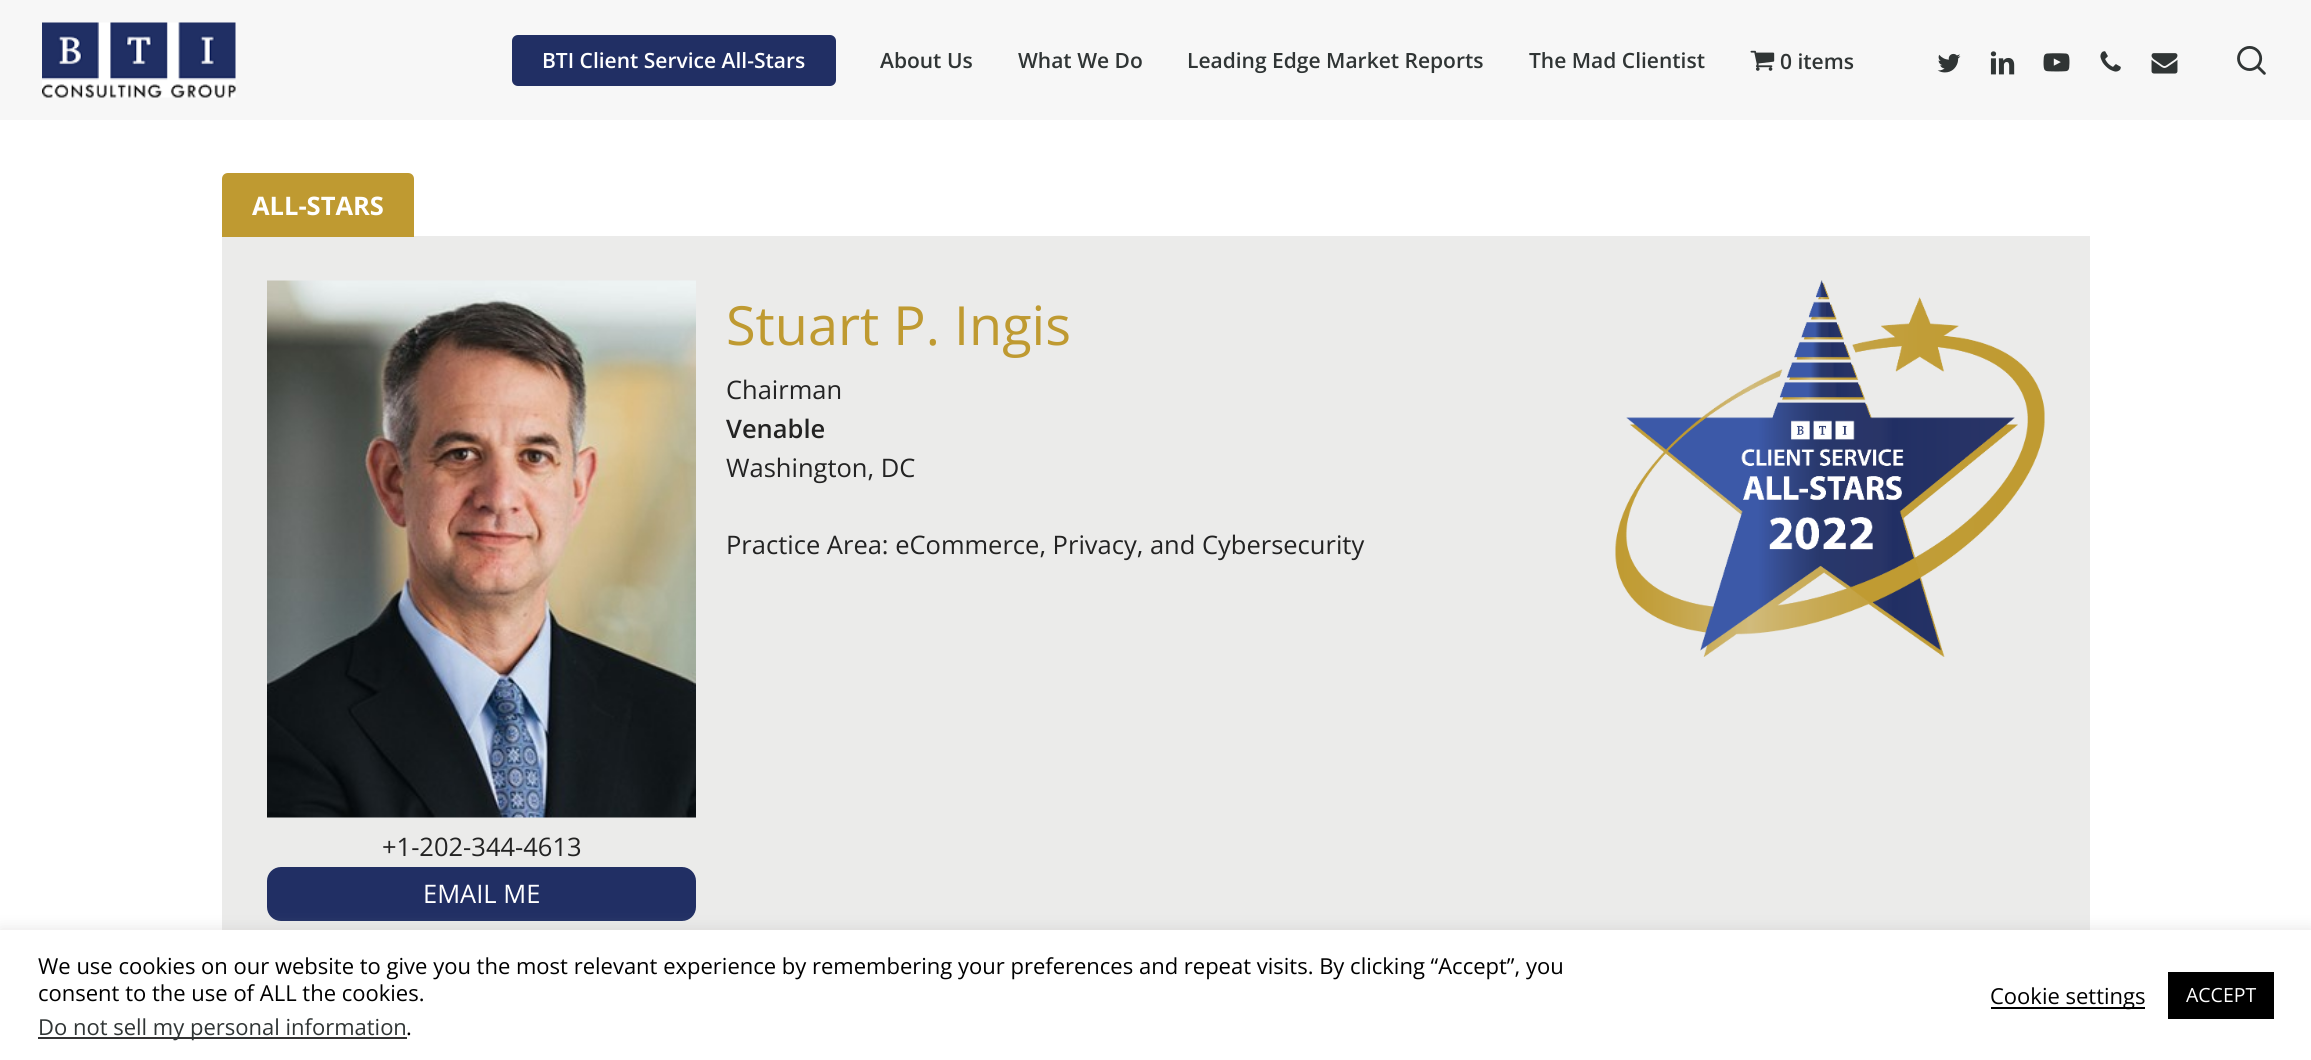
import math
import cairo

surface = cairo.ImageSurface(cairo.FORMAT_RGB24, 2311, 1060)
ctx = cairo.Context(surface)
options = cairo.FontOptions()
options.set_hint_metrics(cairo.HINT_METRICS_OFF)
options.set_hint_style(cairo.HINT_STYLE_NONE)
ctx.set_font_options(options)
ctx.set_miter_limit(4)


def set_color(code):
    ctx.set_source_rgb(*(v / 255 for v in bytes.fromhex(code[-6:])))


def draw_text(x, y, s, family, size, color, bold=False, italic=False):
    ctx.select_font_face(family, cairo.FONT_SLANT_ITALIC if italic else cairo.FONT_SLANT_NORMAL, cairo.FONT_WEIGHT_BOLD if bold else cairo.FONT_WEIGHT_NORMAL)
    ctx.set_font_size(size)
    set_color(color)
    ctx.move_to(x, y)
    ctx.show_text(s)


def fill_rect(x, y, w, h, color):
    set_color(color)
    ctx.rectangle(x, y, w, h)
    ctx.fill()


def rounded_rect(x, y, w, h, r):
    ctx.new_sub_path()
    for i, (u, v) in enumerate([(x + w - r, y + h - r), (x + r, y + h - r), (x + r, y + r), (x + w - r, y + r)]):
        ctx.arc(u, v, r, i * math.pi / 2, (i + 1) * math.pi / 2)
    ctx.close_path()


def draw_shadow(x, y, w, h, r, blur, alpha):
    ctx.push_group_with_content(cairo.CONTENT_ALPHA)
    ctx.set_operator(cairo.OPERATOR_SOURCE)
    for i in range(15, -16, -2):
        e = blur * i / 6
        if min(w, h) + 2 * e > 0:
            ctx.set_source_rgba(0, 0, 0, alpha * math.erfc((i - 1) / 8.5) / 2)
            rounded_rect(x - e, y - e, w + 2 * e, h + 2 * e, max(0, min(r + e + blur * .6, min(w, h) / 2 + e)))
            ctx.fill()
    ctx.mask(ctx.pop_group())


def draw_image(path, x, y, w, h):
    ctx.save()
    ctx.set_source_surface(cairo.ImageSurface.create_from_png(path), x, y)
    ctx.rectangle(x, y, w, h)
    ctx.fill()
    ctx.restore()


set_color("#ffffff")
ctx.paint()
fill_rect(0, 0, 2311, 120, "#f7f7f7")
draw_image("assets/img1.png", 42, 22, 194, 76)
set_color("#212f64")
rounded_rect(512, 35, 324, 51, 6)
ctx.fill()
draw_text(542, 68, "BTI Client Service All-Stars", "Open Sans SemiBold", 21, "#ffffff")
draw_text(880, 68, "About Us", "Open Sans SemiBold", 21, "#303535")
draw_text(1018, 68, "What We Do", "Open Sans SemiBold", 21, "#303535")
draw_text(1187, 68, "Leading Edge Market Reports", "Open Sans SemiBold", 21, "#303535")
draw_text(1529, 68, "The Mad Clientist", "Open Sans SemiBold", 21, "#303535")
draw_image("assets/img2.png", 1750, 50, 25, 21)
draw_text(1780, 69, "0 items", "Open Sans SemiBold", 21, "#303535")
draw_image("assets/img3.png", 1937, 53, 24, 20)
draw_image("assets/img4.png", 1990, 51, 25, 24)
draw_image("assets/img5.png", 2043, 53, 27, 19)
draw_image("assets/img6.png", 2100, 51, 21, 21)
draw_image("assets/img7.png", 2151, 53, 27, 21)
draw_image("assets/img8.png", 2237, 46, 29, 29)
fill_rect(222, 236, 1868, 694, "#ebebea")
set_color("#bf9a31")
ctx.new_path()
ctx.move_to(228, 173)
ctx.line_to(408, 173)
ctx.curve_to(411.5, 173, 414, 175.5, 414, 179)
ctx.line_to(414, 237)
ctx.line_to(222, 237)
ctx.line_to(222, 179)
ctx.curve_to(222, 175.5, 224.5, 173, 228, 173)
ctx.close_path()
ctx.fill()
draw_text(252, 215, "ALL-STARS", "Open Sans", 25.5, "#ffffff", bold=True)
draw_text(726, 345, "Stuart P. Ingis", "Open Sans", 54, "#bf9a31")
draw_text(726, 399, "Chairman", "Open Sans", 25.5, "#232323")
draw_text(726, 438, "Venable", "Open Sans SemiBold", 25.5, "#232323")
draw_text(726, 477, "Washington, DC", "Open Sans", 25.5, "#232323")
draw_text(726, 554, "Practice Area: eCommerce, Privacy, and Cybersecurity", "Open Sans", 25.5, "#232323")
draw_image("assets/img9.png", 1615, 280, 430, 377)
draw_image("assets/img10.png", 267, 280, 429, 538)
draw_text(382, 856, "+1-202-344-4613", "Open Sans", 25.5, "#232323")
set_color("#212f64")
rounded_rect(267, 867, 429, 54, 14)
ctx.fill()
draw_text(423, 903, "EMAIL ME", "Open Sans", 25.5, "#ffffff")
set_color("#acabab")
draw_shadow(0, 929, 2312, 130, 0, 7.5, 0.3)
fill_rect(0, 930, 2311, 130, "#ffffff")
draw_text(38, 974, "We use cookies on our website to give you the most relevant experience by remembering your preferences and repeat visits. By clicking “Accept”, you", "Open Sans", 22, "#000000")
draw_text(38, 1001, "consent to the use of ALL the cookies.", "Open Sans", 22, "#000000")
fill_rect(38, 1037, 369, 2, "#333333")
draw_text(38, 1035, "Do not sell my personal information", "Open Sans", 22, "#303535")
draw_text(406, 1035, ".", "Open Sans", 22, "#000000")
fill_rect(1991, 1007, 154, 2, "#000000")
draw_text(1990, 1004, "Cookie settings", "Open Sans", 22, "#000000")
fill_rect(2168, 972, 106, 47, "#000000")
draw_text(2186, 1002, "ACCEPT", "Open Sans", 19.5, "#ffffff")
surface.write_to_png("output.png")
